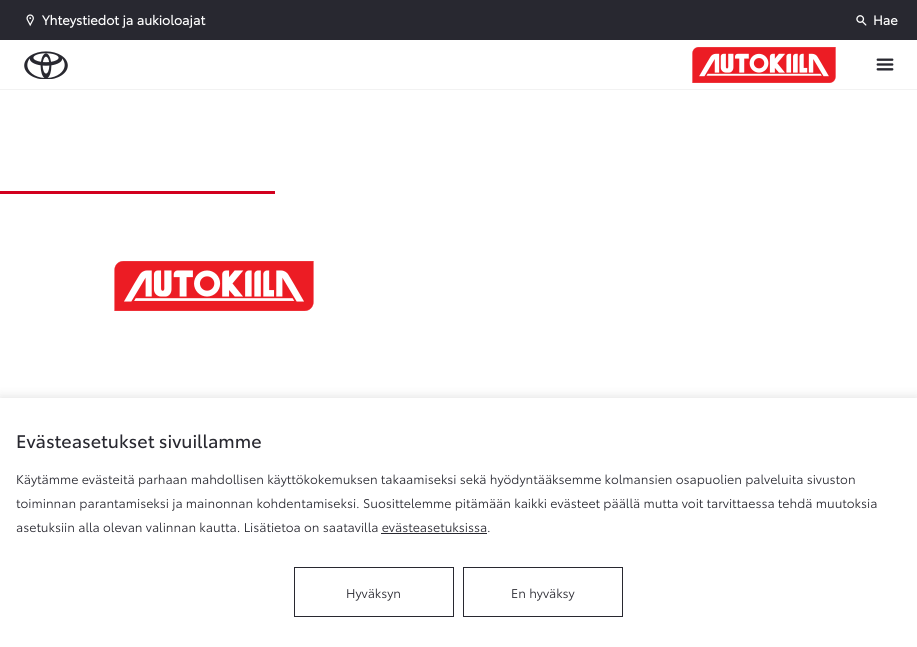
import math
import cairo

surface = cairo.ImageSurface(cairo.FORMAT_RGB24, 917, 647)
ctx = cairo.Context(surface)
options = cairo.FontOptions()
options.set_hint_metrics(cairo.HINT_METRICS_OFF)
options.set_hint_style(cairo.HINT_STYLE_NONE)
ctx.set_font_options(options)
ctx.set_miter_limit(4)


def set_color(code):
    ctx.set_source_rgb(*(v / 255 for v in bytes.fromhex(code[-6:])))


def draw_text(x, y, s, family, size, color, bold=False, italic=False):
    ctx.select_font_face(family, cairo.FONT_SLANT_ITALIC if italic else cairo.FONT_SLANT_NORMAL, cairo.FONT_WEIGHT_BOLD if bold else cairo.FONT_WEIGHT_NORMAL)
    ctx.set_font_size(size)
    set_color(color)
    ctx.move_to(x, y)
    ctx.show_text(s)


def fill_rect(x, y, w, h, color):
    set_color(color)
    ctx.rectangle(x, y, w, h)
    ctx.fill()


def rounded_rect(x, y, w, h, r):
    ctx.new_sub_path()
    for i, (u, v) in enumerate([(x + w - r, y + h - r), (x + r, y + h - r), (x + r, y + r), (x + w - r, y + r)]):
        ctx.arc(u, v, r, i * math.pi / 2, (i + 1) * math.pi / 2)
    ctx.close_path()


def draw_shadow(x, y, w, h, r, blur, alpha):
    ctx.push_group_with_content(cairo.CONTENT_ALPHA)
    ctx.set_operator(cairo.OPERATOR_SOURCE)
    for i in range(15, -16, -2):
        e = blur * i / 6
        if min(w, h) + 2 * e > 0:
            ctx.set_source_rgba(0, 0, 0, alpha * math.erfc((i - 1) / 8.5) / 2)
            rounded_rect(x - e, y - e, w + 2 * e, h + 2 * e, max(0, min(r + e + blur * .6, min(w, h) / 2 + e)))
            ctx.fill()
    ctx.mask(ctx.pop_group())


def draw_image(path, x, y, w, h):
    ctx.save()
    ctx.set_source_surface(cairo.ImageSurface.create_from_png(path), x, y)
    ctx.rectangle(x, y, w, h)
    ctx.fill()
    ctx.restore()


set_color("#ffffff")
ctx.paint()
fill_rect(0, 0, 917, 40, "#282830")
draw_image("assets/img1.png", 26, 14, 8, 13)
draw_text(42, 25, "Yhteystiedot ja aukioloajat", "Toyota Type", 13, "#ffffff", bold=True)
draw_image("assets/img2.png", 856, 15, 11, 11)
draw_text(873, 25, "Hae", "Toyota Type", 13, "#ffffff", bold=True)
fill_rect(0, 89, 917, 1, "#f2f2f2")
draw_image("assets/img3.png", 24, 51, 44, 28)
draw_image("assets/img4.png", 692, 47, 144, 36)
draw_image("assets/img5.png", 876, 58, 18, 13)
fill_rect(0, 191, 275, 3, "#d2001e")
draw_image("assets/img6.png", 114, 261, 200, 50)
set_color("#000000")
draw_shadow(0, 396, 917, 249, 0, 5, 0.1)
fill_rect(0, 398, 917, 249, "#ffffff")
draw_text(16, 448, "Evästeasetukset sivuillamme", "Toyota Type", 18, "#282830")
draw_text(16, 484, "Käytämme evästeitä parhaan mahdollisen käyttökokemuksen takaamiseksi sekä hyödyntääksemme kolmansien osapuolien palveluita sivuston", "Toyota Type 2", 12.48, "#282830")
draw_text(16, 508, "toiminnan parantamiseksi ja mainonnan kohdentamiseksi. Suosittelemme pitämään kaikki evästeet päällä mutta voit tarvittaessa tehdä muutoksia", "Toyota Type 2", 12.48, "#282830")
draw_text(16, 532, "asetuksiin alla olevan valinnan kautta. Lisätietoa on saatavilla evästeasetuksissa.", "Toyota Type 2", 12.48, "#282830")
fill_rect(381, 533, 106, 1, "#282830")
ctx.rectangle(294.5, 567.5, 159, 49)
ctx.set_line_width(1)
ctx.stroke()
draw_text(346, 598, "Hyväksyn", "Toyota Type 2", 12.48, "#282830")
ctx.rectangle(463.5, 567.5, 159, 49)
ctx.stroke()
draw_text(511, 598, "En hyväksy", "Toyota Type 2", 12.48, "#282830")
surface.write_to_png("output.png")
